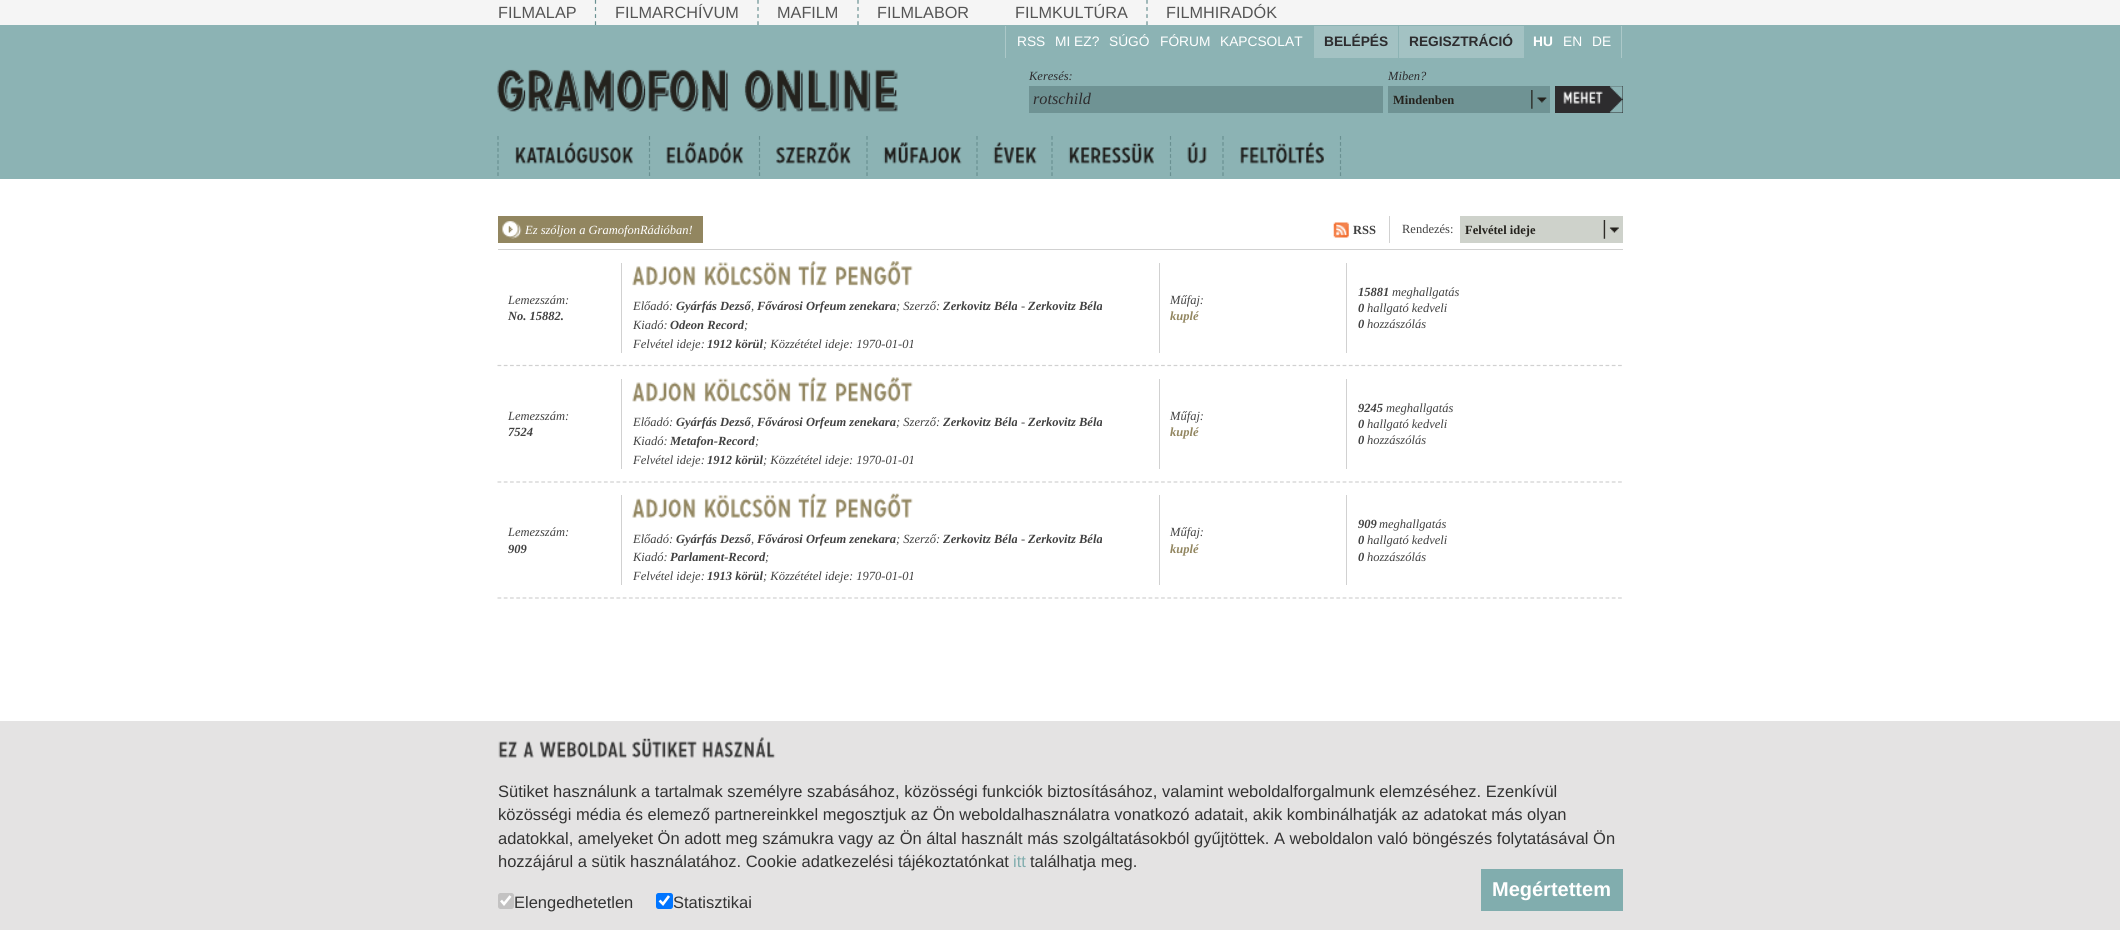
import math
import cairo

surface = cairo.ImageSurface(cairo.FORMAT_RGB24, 2120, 930)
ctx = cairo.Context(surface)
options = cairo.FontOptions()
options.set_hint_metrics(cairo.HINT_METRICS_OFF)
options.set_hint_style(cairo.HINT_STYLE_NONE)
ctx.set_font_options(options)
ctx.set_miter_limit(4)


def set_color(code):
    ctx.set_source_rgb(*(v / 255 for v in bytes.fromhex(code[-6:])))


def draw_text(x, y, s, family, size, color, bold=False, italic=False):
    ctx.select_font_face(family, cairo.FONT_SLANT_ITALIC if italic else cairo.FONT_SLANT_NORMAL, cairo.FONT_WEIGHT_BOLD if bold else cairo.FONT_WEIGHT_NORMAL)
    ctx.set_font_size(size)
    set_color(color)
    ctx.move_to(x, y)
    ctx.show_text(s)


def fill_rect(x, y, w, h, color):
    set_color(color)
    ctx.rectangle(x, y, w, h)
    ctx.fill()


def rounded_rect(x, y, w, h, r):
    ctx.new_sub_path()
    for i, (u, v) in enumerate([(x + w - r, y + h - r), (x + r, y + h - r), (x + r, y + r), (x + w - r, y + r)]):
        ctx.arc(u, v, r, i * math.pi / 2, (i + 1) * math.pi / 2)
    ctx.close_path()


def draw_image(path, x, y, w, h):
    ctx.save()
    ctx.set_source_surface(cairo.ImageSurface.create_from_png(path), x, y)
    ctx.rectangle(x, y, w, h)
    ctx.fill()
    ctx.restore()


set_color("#ffffff")
ctx.paint()
fill_rect(0, 0, 2120, 25, "#f5f5f5")
ctx.new_path()
ctx.move_to(595.5, 0)
ctx.line_to(595.5, 25)
set_color("#699091")
ctx.set_line_width(1.2)
ctx.set_dash([3.75, 3.34])
ctx.stroke()
draw_text(498, 18, "FILMALAP", "Liberation Sans", 16.25, "#555555")
ctx.new_path()
ctx.move_to(758, 0)
ctx.line_to(758, 25)
set_color("#699091")
ctx.stroke()
draw_text(615, 18, "FILMARCHÍVUM", "Liberation Sans", 16.25, "#555555")
ctx.new_path()
ctx.move_to(858, 0)
ctx.line_to(858, 25)
set_color("#699091")
ctx.stroke()
draw_text(777, 18, "MAFILM", "Liberation Sans", 16.25, "#555555")
draw_text(877, 18, "FILMLABOR", "Liberation Sans", 16.25, "#555555")
ctx.new_path()
ctx.move_to(1147, 0)
ctx.line_to(1147, 25)
set_color("#699091")
ctx.stroke()
draw_text(1015, 18, "FILMKULTÚRA", "Liberation Sans", 16.25, "#555555")
draw_text(1166, 18, "FILMHIRADÓK", "Liberation Sans", 16.25, "#555555")
fill_rect(0, 25, 2120, 154, "#8cb3b4")
fill_rect(1005, 26, 1, 32, "#acc8c8")
draw_text(1017, 46, "RSS", "Liberation Sans", 13.75, "#ffffff")
draw_text(1055, 46, "MI EZ?", "Liberation Sans", 13.75, "#ffffff")
draw_text(1109, 46, "SÚGÓ", "Liberation Sans", 13.75, "#ffffff")
draw_text(1160, 46, "FÓRUM", "Liberation Sans", 13.75, "#ffffff")
draw_text(1220, 46, "KAPCSOLAT", "Liberation Sans", 13.75, "#ffffff")
fill_rect(1314, 26, 84, 32, "#a3c2c3")
draw_text(1324, 46, "BELÉPÉS", "Liberation Sans", 13.75, "#2d2c2e", bold=True)
fill_rect(1399, 26, 125, 32, "#a3c2c3")
draw_text(1409, 46, "REGISZTRÁCIÓ", "Liberation Sans", 13.75, "#2d2c2e", bold=True)
fill_rect(1621, 26, 1, 32, "#acc8c8")
draw_text(1533, 46, "HU", "Liberation Sans", 13.75, "#ffffff", bold=True)
draw_text(1563, 46, "EN", "Liberation Sans", 13.75, "#ffffff")
draw_text(1592, 46, "DE", "Liberation Sans", 13.75, "#ffffff")
draw_image("assets/img1.png", 497, 69, 401, 43)
draw_text(1029, 80, "Keresés:", "Liberation Serif", 12.5, "#2d2c2e", italic=True)
fill_rect(1029, 86, 354, 27, "#6f9394")
draw_text(1033, 104, "rotschild", "Liberation Serif", 16.25, "#2d2c2e", italic=True)
draw_text(1388, 80, "Miben?", "Liberation Serif", 12.5, "#2d2c2e", italic=True)
fill_rect(1388, 86, 162, 27, "#6f9394")
draw_image("assets/img2.png", 1531, 90, 16, 19)
draw_text(1393, 104, "Mindenben", "Liberation Serif", 12.5, "#24221d", bold=True)
fill_rect(1555, 86, 68, 27, "#2d2c2e")
draw_image("assets/img3.png", 1609, 86, 14, 27)
draw_image("assets/img4.png", 1563, 91, 40, 13)
ctx.new_path()
ctx.move_to(498, 136)
ctx.line_to(498, 176)
set_color("#699091")
ctx.set_dash([3.75, 2.29])
ctx.stroke()
draw_image("assets/img5.png", 515, 142, 119, 22)
ctx.new_path()
ctx.move_to(649.5, 136)
ctx.line_to(649.5, 176)
ctx.stroke()
draw_image("assets/img6.png", 666, 142, 78, 22)
ctx.new_path()
ctx.move_to(759.5, 136)
ctx.line_to(759.5, 176)
ctx.stroke()
draw_image("assets/img7.png", 776, 142, 75, 22)
ctx.new_path()
ctx.move_to(867, 136)
ctx.line_to(867, 176)
ctx.stroke()
draw_image("assets/img8.png", 883, 142, 79, 22)
ctx.new_path()
ctx.move_to(977, 136)
ctx.line_to(977, 176)
ctx.stroke()
draw_image("assets/img9.png", 993, 142, 44, 22)
ctx.new_path()
ctx.move_to(1052, 136)
ctx.line_to(1052, 176)
ctx.stroke()
draw_image("assets/img10.png", 1068, 143, 86, 21)
ctx.new_path()
ctx.move_to(1170.5, 136)
ctx.line_to(1170.5, 176)
ctx.stroke()
draw_image("assets/img11.png", 1187, 142, 20, 22)
ctx.new_path()
ctx.move_to(1340.5, 136)
ctx.line_to(1340.5, 176)
ctx.stroke()
ctx.new_path()
ctx.move_to(1223, 136)
ctx.line_to(1223, 176)
ctx.stroke()
draw_image("assets/img12.png", 1240, 142, 84, 22)
fill_rect(498, 249, 1125, 1, "#d1d1d1")
fill_rect(498, 216, 205, 27, "#928660")
draw_image("assets/img13.png", 502, 221, 20, 18)
draw_text(525, 234, "Ez szóljon a GramofonRádióban!", "Liberation Serif", 12.5, "#ffffff", italic=True)
draw_image("assets/img14.png", 1333, 222, 16, 16)
fill_rect(1389, 216, 1, 27, "#d1d1d1")
draw_text(1353, 234, "RSS", "Liberation Serif", 12.5, "#414141", bold=True)
draw_text(1402, 233, "Rendezés:", "Liberation Serif", 12.5, "#414141")
fill_rect(1460, 216, 163, 27, "#ced2cb")
draw_image("assets/img15.png", 1603, 220, 16, 19)
draw_text(1465, 234, "Felvétel ideje", "Liberation Serif", 12.5, "#24221d", bold=True)
ctx.new_path()
ctx.move_to(497.5, 365.5)
ctx.line_to(1622.5, 365.5)
set_color("#d1d1d1")
ctx.set_dash([3.75, 2.51])
ctx.stroke()
fill_rect(621, 263, 1, 90, "#d1d1d1")
draw_text(508, 304, "Lemezszám:", "Liberation Serif", 12.5, "#414141", italic=True)
draw_text(508, 320, "No. 15882.", "Liberation Serif", 12.5, "#414141", bold=True, italic=True)
fill_rect(1159, 263, 1, 90, "#d1d1d1")
draw_image("assets/img16.png", 632, 266, 64, 20)
draw_image("assets/img17.png", 704, 262, 87, 24)
draw_image("assets/img18.png", 798, 261, 29, 25)
draw_image("assets/img19.png", 836, 261, 77, 25)
draw_text(633, 310, "Előadó:", "Liberation Serif", 12.5, "#414141", italic=True)
draw_text(676, 310, "Gyárfás Dezső", "Liberation Serif", 12.5, "#414141", bold=True, italic=True)
draw_text(757, 310, "Fővárosi Orfeum zenekara", "Liberation Serif", 12.5, "#414141", bold=True, italic=True)
draw_text(896, 310, "; Szerző:", "Liberation Serif", 12.5, "#414141", italic=True)
draw_text(943, 310, "Zerkovitz Béla", "Liberation Serif", 12.5, "#414141", bold=True, italic=True)
draw_text(1021, 310, "-", "Liberation Serif", 12.5, "#414141", italic=True)
draw_text(1028, 310, "Zerkovitz Béla", "Liberation Serif", 12.5, "#414141", bold=True, italic=True)
draw_text(751, 310, ",", "Liberation Serif", 12.5, "#414141", italic=True)
draw_text(633, 329, "Kiadó:", "Liberation Serif", 12.5, "#414141", italic=True)
draw_text(670, 329, "Odeon Record", "Liberation Serif", 12.5, "#414141", bold=True, italic=True)
draw_text(744, 329, ";", "Liberation Serif", 12.5, "#414141", italic=True)
draw_text(633, 348, "Felvétel ideje:", "Liberation Serif", 12.5, "#414141", italic=True)
draw_text(707, 348, "1912 körül", "Liberation Serif", 12.5, "#414141", bold=True, italic=True)
draw_text(763, 348, "; Közzététel ideje: 1970-01-01", "Liberation Serif", 12.5, "#414141", italic=True)
fill_rect(1346, 263, 1, 90, "#d1d1d1")
draw_text(1170, 304, "Műfaj:", "Liberation Serif", 12.5, "#414141", italic=True)
draw_text(1170, 320, "kuplé", "Liberation Serif", 12.5, "#928660", bold=True, italic=True)
draw_text(1358, 296, "15881", "Liberation Serif", 12.5, "#414141", bold=True, italic=True)
draw_text(1392, 296, "meghallgatás", "Liberation Serif", 12.5, "#414141", italic=True)
draw_text(1358, 312, "0", "Liberation Serif", 12.5, "#414141", bold=True, italic=True)
draw_text(1367, 312, "hallgató kedveli", "Liberation Serif", 12.5, "#414141", italic=True)
draw_text(1358, 328, "0", "Liberation Serif", 12.5, "#414141", bold=True, italic=True)
draw_text(1367, 328, "hozzászólás", "Liberation Serif", 12.5, "#414141", italic=True)
ctx.new_path()
ctx.move_to(497.5, 482)
ctx.line_to(1622.5, 482)
set_color("#d1d1d1")
ctx.stroke()
fill_rect(621, 379, 1, 90, "#d1d1d1")
draw_text(508, 420, "Lemezszám:", "Liberation Serif", 12.5, "#414141", italic=True)
draw_text(508, 436, "7524", "Liberation Serif", 12.5, "#414141", bold=True, italic=True)
fill_rect(1159, 379, 1, 90, "#d1d1d1")
draw_image("assets/img20.png", 632, 382, 64, 20)
draw_image("assets/img21.png", 704, 378, 87, 24)
draw_image("assets/img22.png", 798, 377, 29, 25)
draw_image("assets/img23.png", 836, 377, 77, 25)
draw_text(633, 426, "Előadó:", "Liberation Serif", 12.5, "#414141", italic=True)
draw_text(676, 426, "Gyárfás Dezső", "Liberation Serif", 12.5, "#414141", bold=True, italic=True)
draw_text(757, 426, "Fővárosi Orfeum zenekara", "Liberation Serif", 12.5, "#414141", bold=True, italic=True)
draw_text(896, 426, "; Szerző:", "Liberation Serif", 12.5, "#414141", italic=True)
draw_text(943, 426, "Zerkovitz Béla", "Liberation Serif", 12.5, "#414141", bold=True, italic=True)
draw_text(1021, 426, "-", "Liberation Serif", 12.5, "#414141", italic=True)
draw_text(1028, 426, "Zerkovitz Béla", "Liberation Serif", 12.5, "#414141", bold=True, italic=True)
draw_text(751, 426, ",", "Liberation Serif", 12.5, "#414141", italic=True)
draw_text(633, 445, "Kiadó:", "Liberation Serif", 12.5, "#414141", italic=True)
draw_text(670, 445, "Metafon-Record", "Liberation Serif", 12.5, "#414141", bold=True, italic=True)
draw_text(755, 445, ";", "Liberation Serif", 12.5, "#414141", italic=True)
draw_text(633, 464, "Felvétel ideje:", "Liberation Serif", 12.5, "#414141", italic=True)
draw_text(707, 464, "1912 körül", "Liberation Serif", 12.5, "#414141", bold=True, italic=True)
draw_text(763, 464, "; Közzététel ideje: 1970-01-01", "Liberation Serif", 12.5, "#414141", italic=True)
fill_rect(1346, 379, 1, 90, "#d1d1d1")
draw_text(1170, 420, "Műfaj:", "Liberation Serif", 12.5, "#414141", italic=True)
draw_text(1170, 436, "kuplé", "Liberation Serif", 12.5, "#928660", bold=True, italic=True)
draw_text(1358, 412, "9245", "Liberation Serif", 12.5, "#414141", bold=True, italic=True)
draw_text(1386, 412, "meghallgatás", "Liberation Serif", 12.5, "#414141", italic=True)
draw_text(1358, 428, "0", "Liberation Serif", 12.5, "#414141", bold=True, italic=True)
draw_text(1367, 428, "hallgató kedveli", "Liberation Serif", 12.5, "#414141", italic=True)
draw_text(1358, 444, "0", "Liberation Serif", 12.5, "#414141", bold=True, italic=True)
draw_text(1367, 444, "hozzászólás", "Liberation Serif", 12.5, "#414141", italic=True)
ctx.new_path()
ctx.move_to(497.5, 598)
ctx.line_to(1622.5, 598)
set_color("#d1d1d1")
ctx.stroke()
fill_rect(621, 495, 1, 90, "#d1d1d1")
draw_text(508, 536, "Lemezszám:", "Liberation Serif", 12.5, "#414141", italic=True)
draw_text(508, 553, "909", "Liberation Serif", 12.5, "#414141", bold=True, italic=True)
fill_rect(1159, 495, 1, 90, "#d1d1d1")
draw_image("assets/img24.png", 632, 498, 64, 20)
draw_image("assets/img25.png", 704, 494, 87, 24)
draw_image("assets/img26.png", 798, 493, 30, 25)
draw_image("assets/img27.png", 836, 493, 77, 25)
draw_text(633, 543, "Előadó:", "Liberation Serif", 12.5, "#414141", italic=True)
draw_text(676, 543, "Gyárfás Dezső", "Liberation Serif", 12.5, "#414141", bold=True, italic=True)
draw_text(757, 543, "Fővárosi Orfeum zenekara", "Liberation Serif", 12.5, "#414141", bold=True, italic=True)
draw_text(896, 543, "; Szerző:", "Liberation Serif", 12.5, "#414141", italic=True)
draw_text(943, 543, "Zerkovitz Béla", "Liberation Serif", 12.5, "#414141", bold=True, italic=True)
draw_text(1021, 543, "-", "Liberation Serif", 12.5, "#414141", italic=True)
draw_text(1028, 543, "Zerkovitz Béla", "Liberation Serif", 12.5, "#414141", bold=True, italic=True)
draw_text(751, 543, ",", "Liberation Serif", 12.5, "#414141", italic=True)
draw_text(633, 561, "Kiadó:", "Liberation Serif", 12.5, "#414141", italic=True)
draw_text(670, 561, "Parlament-Record", "Liberation Serif", 12.5, "#414141", bold=True, italic=True)
draw_text(765, 561, ";", "Liberation Serif", 12.5, "#414141", italic=True)
draw_text(633, 580, "Felvétel ideje:", "Liberation Serif", 12.5, "#414141", italic=True)
draw_text(707, 580, "1913 körül", "Liberation Serif", 12.5, "#414141", bold=True, italic=True)
draw_text(763, 580, "; Közzététel ideje: 1970-01-01", "Liberation Serif", 12.5, "#414141", italic=True)
fill_rect(1346, 495, 1, 90, "#d1d1d1")
draw_text(1170, 536, "Műfaj:", "Liberation Serif", 12.5, "#414141", italic=True)
draw_text(1170, 553, "kuplé", "Liberation Serif", 12.5, "#928660", bold=True, italic=True)
draw_text(1358, 528, "909", "Liberation Serif", 12.5, "#414141", bold=True, italic=True)
draw_text(1379, 528, "meghallgatás", "Liberation Serif", 12.5, "#414141", italic=True)
draw_text(1358, 544, "0", "Liberation Serif", 12.5, "#414141", bold=True, italic=True)
draw_text(1367, 544, "hallgató kedveli", "Liberation Serif", 12.5, "#414141", italic=True)
draw_text(1358, 561, "0", "Liberation Serif", 12.5, "#414141", bold=True, italic=True)
draw_text(1367, 561, "hozzászólás", "Liberation Serif", 12.5, "#414141", italic=True)
fill_rect(0, 721, 2120, 209, "#e4e3e3")
draw_image("assets/img28.png", 498, 741, 20, 17)
draw_image("assets/img29.png", 523, 741, 11, 17)
draw_image("assets/img30.png", 539, 741, 88, 17)
draw_image("assets/img31.png", 632, 738, 65, 20)
draw_image("assets/img32.png", 702, 737, 74, 21)
draw_text(498, 797, "Sütiket használunk a tartalmak személyre szabásához, közösségi funkciók biztosításához, valamint weboldalforgalmunk elemzéséhez. Ezenkívül", "Liberation Sans", 16.5, "#333333")
draw_text(498, 820, "közösségi média és elemező partnereinkkel megosztjuk az Ön weboldalhasználatra vonatkozó adatait, akik kombinálhatják az adatokat más olyan", "Liberation Sans", 16.5, "#333333")
draw_text(498, 844, "adatokkal, amelyeket Ön adott meg számukra vagy az Ön által használt más szolgáltatásokból gyűjtöttek. A weboldalon való böngészés folytatásával Ön", "Liberation Sans", 16.5, "#333333")
draw_text(498, 867, "hozzájárul a sütik használatához. Cookie adatkezelési tájékoztatónkat", "Liberation Sans", 16.5, "#333333")
draw_text(1013, 867, "itt", "Liberation Sans", 16.5, "#81adae")
draw_text(1030, 867, "találhatja meg.", "Liberation Sans", 16.5, "#333333")
fill_rect(1481, 869, 142, 42, "#81adae")
draw_text(1492, 896, "Megértettem", "Liberation Sans", 20, "#ffffff", bold=True)
set_color("#c3c2c2")
rounded_rect(498, 893, 16, 16, 2.5)
ctx.fill()
ctx.new_path()
ctx.move_to(501, 900.5)
ctx.line_to(504, 904)
ctx.line_to(510.5, 896)
set_color("#ffffff")
ctx.set_line_width(2.6)
ctx.set_dash([])
ctx.stroke()
draw_text(514, 908, "Elengedhetetlen", "Liberation Sans", 16.5, "#333333")
set_color("#0075ff")
rounded_rect(656, 893, 17, 16, 2.5)
ctx.fill()
ctx.new_path()
ctx.move_to(659.5, 900.5)
ctx.line_to(663, 904)
ctx.line_to(669, 896)
set_color("#ffffff")
ctx.stroke()
draw_text(673, 908, "Statisztikai", "Liberation Sans", 16.5, "#333333")
surface.write_to_png("output.png")
